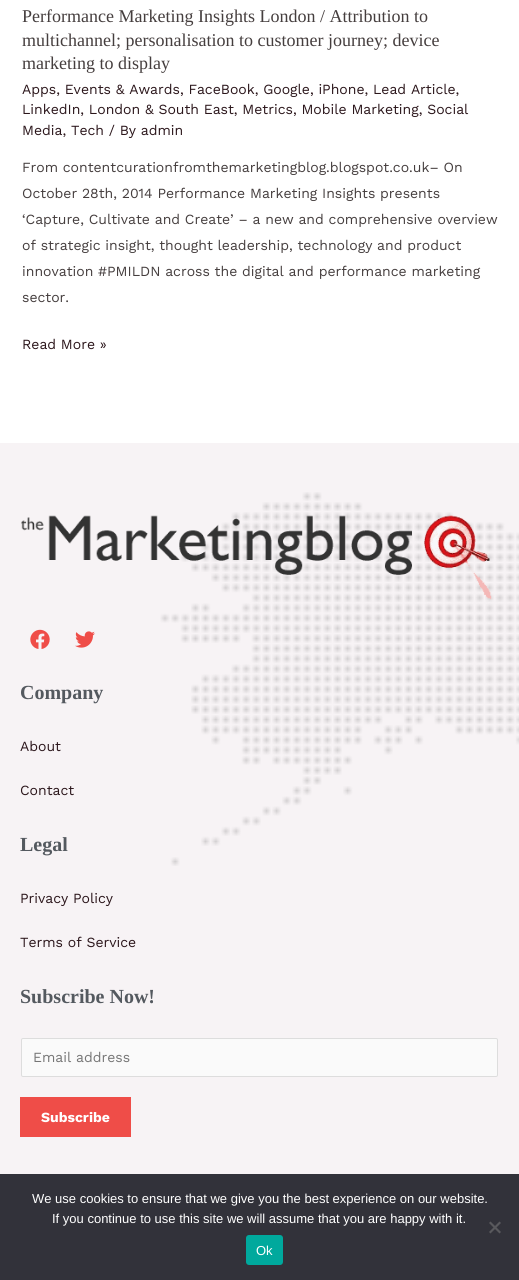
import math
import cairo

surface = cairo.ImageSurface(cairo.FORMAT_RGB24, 519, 1280)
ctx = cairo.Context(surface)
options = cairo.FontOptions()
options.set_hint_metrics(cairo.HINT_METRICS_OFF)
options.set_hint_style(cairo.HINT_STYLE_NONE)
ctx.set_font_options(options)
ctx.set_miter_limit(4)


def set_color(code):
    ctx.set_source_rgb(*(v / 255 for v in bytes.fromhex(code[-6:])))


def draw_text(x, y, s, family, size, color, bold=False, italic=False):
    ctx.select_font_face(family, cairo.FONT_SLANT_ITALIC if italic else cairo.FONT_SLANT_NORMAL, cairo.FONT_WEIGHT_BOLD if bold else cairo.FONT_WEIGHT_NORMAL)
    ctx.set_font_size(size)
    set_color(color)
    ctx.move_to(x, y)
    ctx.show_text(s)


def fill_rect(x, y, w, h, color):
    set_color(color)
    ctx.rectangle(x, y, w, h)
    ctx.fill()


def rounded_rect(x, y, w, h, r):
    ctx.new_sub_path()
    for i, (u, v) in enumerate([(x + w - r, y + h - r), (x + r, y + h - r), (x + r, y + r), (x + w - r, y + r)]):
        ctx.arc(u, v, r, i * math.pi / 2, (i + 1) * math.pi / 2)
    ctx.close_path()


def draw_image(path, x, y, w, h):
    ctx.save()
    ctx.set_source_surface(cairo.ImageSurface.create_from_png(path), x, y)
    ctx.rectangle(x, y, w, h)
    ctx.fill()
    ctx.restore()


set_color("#ffffff")
ctx.paint()
draw_text(22, 22, "Performance Marketing Insights London / Attribution to", "Liberation Serif", 18, "#453e3e")
draw_text(22, 46, "multichannel; personalisation to customer journey; device", "Liberation Serif", 18, "#453e3e")
draw_text(22, 69, "marketing to display", "Liberation Serif", 18, "#453e3e")
draw_text(22, 94, "Apps, Events & Awards, FaceBook, Google, iPhone, Lead Article,", "Work Sans", 14, "#2b161b")
draw_text(22, 114, "LinkedIn, London & South East, Metrics, Mobile Marketing, Social", "Work Sans", 14, "#2b161b")
draw_text(22, 135, "Media, Tech / By admin", "Work Sans", 14, "#2b161b")
draw_text(22, 172, "From contentcurationfromthemarketingblog.blogspot.co.uk– On", "Work Sans", 14, "#453e3e")
draw_text(22, 198, "October 28th, 2014 Performance Marketing Insights presents", "Work Sans", 14, "#453e3e")
draw_text(22, 224, "‘Capture, Cultivate and Create’ – a new and comprehensive overview", "Work Sans", 14, "#453e3e")
draw_text(22, 250, "of strategic insight, thought leadership, technology and product", "Work Sans", 14, "#453e3e")
draw_text(22, 276, "innovation #PMILDN across the digital and performance marketing", "Work Sans", 14, "#453e3e")
draw_text(22, 302, "sector.", "Work Sans", 14, "#453e3e")
draw_text(22, 349, "Read More »", "Work Sans", 14, "#2b161b")
fill_rect(0, 443, 519, 731, "#f7f3f5")
draw_image("assets/img1.png", 160, 492, 359, 374)
draw_image("assets/img2.png", 21, 515, 472, 85)
draw_image("assets/img3.png", 30, 629, 20, 20)
draw_image("assets/img4.png", 75, 631, 20, 17)
draw_text(20, 699, "Company", "Liberation Serif", 20, "#54595f", bold=True)
draw_text(20, 751, "About", "Work Sans", 14, "#2b161b")
draw_text(20, 795, "Contact", "Work Sans", 14, "#2b161b")
draw_text(20, 851, "Legal", "Liberation Serif", 20, "#54595f", bold=True)
draw_text(20, 903, "Privacy Policy", "Work Sans", 14, "#2b161b")
draw_text(20, 947, "Terms of Service", "Work Sans", 14, "#2b161b")
draw_text(20, 1003, "Subscribe Now!", "Liberation Serif", 20, "#54595f", bold=True)
set_color("#fafafa")
rounded_rect(21.5, 1038.5, 476, 38, 1.5)
ctx.fill_preserve()
set_color("#dddddd")
ctx.set_line_width(1)
ctx.stroke()
draw_text(33, 1062, "Email address", "Work Sans", 14, "#757575")
fill_rect(20, 1097, 111, 40, "#ef4d48")
draw_text(41, 1122, "Subscribe", "Work Sans", 14, "#ffffff", bold=True)
fill_rect(0, 1174, 519, 106, "#32323a")
draw_text(32, 1203, "We use cookies to ensure that we give you the best experience on our website.", "Liberation Sans", 13, "#ffffff")
draw_text(52, 1223, "If you continue to use this site we will assume that you are happy with it.", "Liberation Sans", 13, "#ffffff")
set_color("#59595d")
ctx.new_path()
ctx.move_to(499.5, 1221.5)
ctx.line_to(501, 1223)
ctx.line_to(490.5, 1233.5)
ctx.line_to(489, 1232)
ctx.close_path()
ctx.fill()
ctx.new_path()
ctx.move_to(489, 1223)
ctx.line_to(490.5, 1221.5)
ctx.line_to(501, 1232)
ctx.line_to(499.5, 1233.5)
ctx.close_path()
ctx.fill()
set_color("#00a99d")
rounded_rect(246, 1235, 37, 30, 3)
ctx.fill()
draw_text(256, 1255, "Ok", "Liberation Sans", 13, "#ffffff")
surface.write_to_png("output.png")
